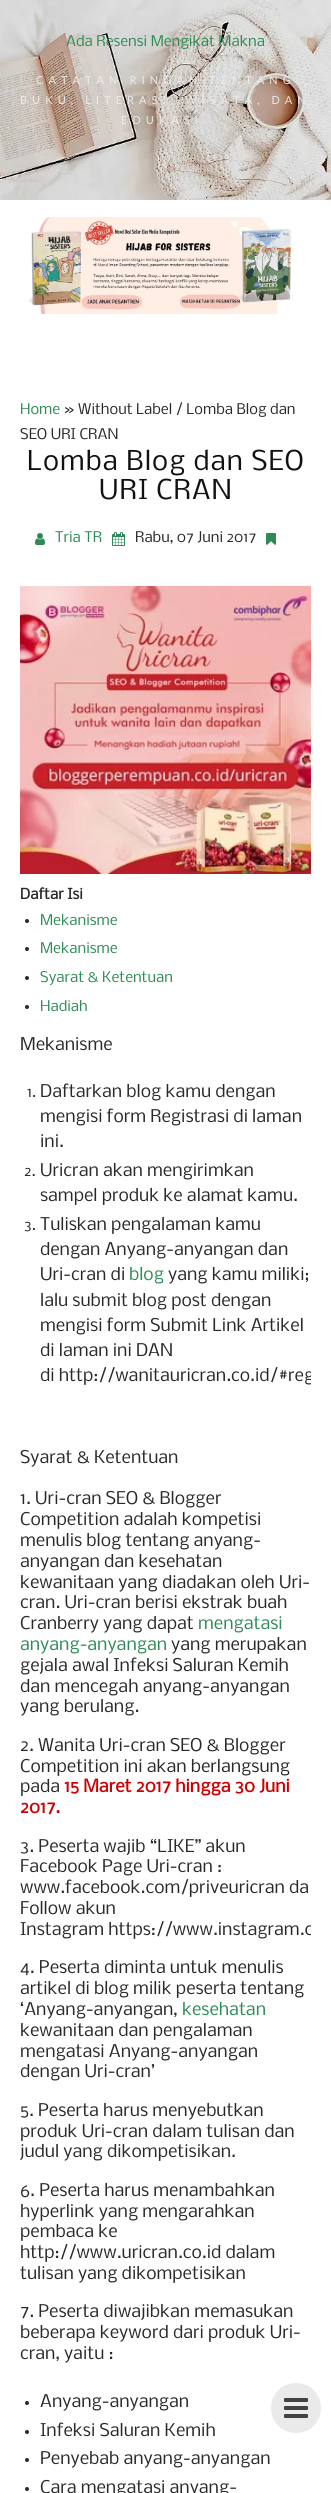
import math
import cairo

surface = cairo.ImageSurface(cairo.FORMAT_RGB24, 331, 2493)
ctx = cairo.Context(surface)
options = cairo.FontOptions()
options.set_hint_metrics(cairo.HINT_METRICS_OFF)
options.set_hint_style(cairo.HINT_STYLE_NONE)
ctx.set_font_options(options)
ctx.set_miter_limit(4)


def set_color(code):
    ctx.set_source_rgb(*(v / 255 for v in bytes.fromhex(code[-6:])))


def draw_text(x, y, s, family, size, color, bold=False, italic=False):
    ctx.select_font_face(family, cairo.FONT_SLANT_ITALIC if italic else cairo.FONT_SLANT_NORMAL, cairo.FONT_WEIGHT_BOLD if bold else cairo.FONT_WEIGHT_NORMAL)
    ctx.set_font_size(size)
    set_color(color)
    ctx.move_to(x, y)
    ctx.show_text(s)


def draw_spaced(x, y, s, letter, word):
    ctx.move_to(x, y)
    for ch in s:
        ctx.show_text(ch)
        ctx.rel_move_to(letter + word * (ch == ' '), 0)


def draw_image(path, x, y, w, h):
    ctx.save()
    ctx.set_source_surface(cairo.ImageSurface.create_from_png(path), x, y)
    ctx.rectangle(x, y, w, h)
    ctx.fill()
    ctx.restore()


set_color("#ffffff")
ctx.paint()
draw_image("assets/img1.png", 0, 0, 331, 200)
draw_text(66, 46, "Ada Resensi Mengikat Makna", "Nobile", 14, "#2e8b57")
ctx.select_font_face("Lato")
ctx.set_font_size(11)
set_color("#eaeaea")
draw_spaced(36, 84, "CATATAN RINGAN TENTANG", 5, 0)
draw_spaced(20, 104, "BUKU, LITERASI, WISATA, DAN", 5, 0)
draw_spaced(121, 124, "EDUKASI.", 5, 0)
draw_image("assets/img2.png", 28, 217, 264, 97)
draw_text(20, 414, "Home", "Nobile", 14, "#2e8b57")
draw_text(64, 414, "» Without Label / Lomba Blog dan", "Nobile", 14, "#292929")
draw_text(20, 439, "SEO URI CRAN", "Nobile", 14, "#292929")
ctx.set_font_size(26)
set_color("#111111")
draw_spaced(27, 470, "Lomba Blog dan SEO", 1, 0)
draw_spaced(99, 499, "URI CRAN", 1, 0)
draw_image("assets/img3.png", 35, 533, 10, 12)
draw_text(55, 542, "Tria TR", "Nobile", 14, "#2e8b57")
draw_image("assets/img4.png", 112, 532, 13, 14)
draw_text(135, 542, "Rabu, 07 Juni 2017", "Nobile", 14, "#292929")
draw_image("assets/img5.png", 266, 533, 10, 12)
draw_image("assets/img6.png", 20, 586, 291, 288)
draw_text(20, 899, "Daftar Isi", "Nobile", 14, "#292929", bold=True)
ctx.new_path()
ctx.arc(27, 921, 2, 0, 2 * math.pi)
ctx.fill()
draw_text(40, 925, "Mekanisme", "Nobile", 14, "#2e8b57")
set_color("#292929")
ctx.new_path()
ctx.arc(27, 949, 2, 0, 2 * math.pi)
ctx.fill()
draw_text(40, 953, "Mekanisme", "Nobile", 14, "#2e8b57")
set_color("#292929")
ctx.new_path()
ctx.arc(27, 978, 2, 0, 2 * math.pi)
ctx.fill()
draw_text(40, 982, "Syarat & Ketentuan", "Nobile", 14, "#2e8b57")
set_color("#292929")
ctx.new_path()
ctx.arc(27, 1007, 2, 0, 2 * math.pi)
ctx.fill()
draw_text(40, 1011, "Hadiah", "Nobile", 14, "#2e8b57")
draw_text(20, 1050, "Mekanisme", "Nobile", 16.7, "#292929")
draw_text(27, 1097, "1.", "Nobile", 14, "#292929")
draw_text(40, 1097, "Daftarkan blog kamu dengan", "Nobile", 16.7, "#292929")
draw_text(40, 1122, "mengisi form Registrasi di laman", "Nobile", 16.7, "#292929")
draw_text(40, 1147, "ini.", "Nobile", 16.7, "#292929")
draw_text(24, 1176, "2.", "Nobile", 14, "#292929")
draw_text(40, 1176, "Uricran akan mengirimkan", "Nobile", 16.7, "#292929")
draw_text(40, 1201, "sampel produk ke alamat kamu.", "Nobile", 16.7, "#292929")
draw_text(24, 1230, "3.", "Nobile", 14, "#292929")
draw_text(40, 1230, "Tuliskan pengalaman kamu", "Nobile", 16.7, "#292929")
draw_text(40, 1255, "dengan Anyang-anyangan dan", "Nobile", 16.7, "#292929")
draw_text(40, 1280, "Uri-cran di", "Nobile", 16.7, "#292929")
draw_text(129, 1280, "blog", "Nobile", 16.7, "#2e8b57")
draw_text(168, 1280, "yang kamu miliki;", "Nobile", 16.7, "#292929")
draw_text(40, 1306, "lalu submit blog post dengan", "Nobile", 16.7, "#292929")
draw_text(40, 1331, "mengisi form Submit Link Artikel", "Nobile", 16.7, "#292929")
draw_text(40, 1356, "di laman ini DAN", "Nobile", 16.7, "#292929")
ctx.save()
ctx.rectangle(20, 586, 291, 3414)
ctx.clip()
draw_text(40, 1381, "di http://wanitauricran.co.id/#reg", "Nobile", 16.7, "#292929")
ctx.restore()
draw_text(20, 1463, "Syarat & Ketentuan", "Nobile", 16.7, "#292929")
draw_text(20, 1504, "1. Uri-cran SEO & Blogger", "Nobile", 16.7, "#292929")
draw_text(20, 1525, "Competition adalah kompetisi", "Nobile", 16.7, "#292929")
draw_text(20, 1546, "menulis blog tentang anyang-", "Nobile", 16.7, "#292929")
draw_text(20, 1567, "anyangan dan kesehatan", "Nobile", 16.7, "#292929")
draw_text(20, 1588, "kewanitaan yang diadakan oleh Uri-", "Nobile", 16.7, "#292929")
draw_text(20, 1608, "cran. Uri-cran berisi ekstrak buah", "Nobile", 16.7, "#292929")
draw_text(20, 1629, "Cranberry yang dapat", "Nobile", 16.7, "#292929")
draw_text(198, 1629, "mengatasi", "Nobile", 16.7, "#2e8b57")
draw_text(20, 1650, "anyang-anyangan", "Nobile", 16.7, "#2e8b57")
draw_text(171, 1650, "yang merupakan", "Nobile", 16.7, "#292929")
draw_text(20, 1671, "gejala awal Infeksi Saluran Kemih", "Nobile", 16.7, "#292929")
draw_text(20, 1692, "dan mencegah anyang-anyangan", "Nobile", 16.7, "#292929")
draw_text(20, 1712, "yang berulang.", "Nobile", 16.7, "#292929")
draw_text(20, 1751, "2. Wanita Uri-cran SEO & Blogger", "Nobile", 16.7, "#292929")
draw_text(20, 1772, "Competition ini akan berlangsung", "Nobile", 16.7, "#292929")
draw_text(20, 1792, "pada", "Nobile", 16.7, "#292929")
draw_text(64, 1792, "15 Maret 2017 hingga 30 Juni", "Nobile", 16.7, "#cc0000", bold=True)
draw_text(20, 1813, "2017.", "Nobile", 16.7, "#cc0000", bold=True)
draw_text(20, 1852, "3. Peserta wajib “LIKE” akun", "Nobile", 16.7, "#292929")
draw_text(20, 1872, "Facebook Page Uri-cran :", "Nobile", 16.7, "#292929")
draw_text(20, 1893, "www.facebook.com/priveuricran da", "Nobile", 16.7, "#292929")
draw_text(20, 1914, "Follow akun", "Nobile", 16.7, "#292929")
ctx.save()
ctx.rectangle(20, 586, 291, 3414)
ctx.clip()
draw_text(20, 1935, "Instagram https://www.instagram.c", "Nobile", 16.7, "#292929")
ctx.restore()
draw_text(20, 1973, "4. Peserta diminta untuk menulis", "Nobile", 16.7, "#292929")
draw_text(20, 1994, "artikel di blog milik peserta tentang", "Nobile", 16.7, "#292929")
draw_text(20, 2015, "‘Anyang-anyangan,", "Nobile", 16.7, "#292929")
draw_text(182, 2015, "kesehatan", "Nobile", 16.7, "#2e8b57")
draw_text(20, 2036, "kewanitaan dan pengalaman", "Nobile", 16.7, "#292929")
draw_text(20, 2057, "mengatasi Anyang-anyangan", "Nobile", 16.7, "#292929")
draw_text(20, 2077, "dengan Uri-cran’", "Nobile", 16.7, "#292929")
draw_text(20, 2116, "5. Peserta harus menyebutkan", "Nobile", 16.7, "#292929")
draw_text(20, 2137, "produk Uri-cran dalam tulisan dan", "Nobile", 16.7, "#292929")
draw_text(20, 2157, "judul yang dikompetisikan.", "Nobile", 16.7, "#292929")
draw_text(20, 2196, "6. Peserta harus menambahkan", "Nobile", 16.7, "#292929")
draw_text(20, 2217, "hyperlink yang mengarahkan", "Nobile", 16.7, "#292929")
draw_text(20, 2237, "pembaca ke", "Nobile", 16.7, "#292929")
draw_text(20, 2258, "http://www.uricran.co.id dalam", "Nobile", 16.7, "#292929")
draw_text(20, 2279, "tulisan yang dikompetisikan", "Nobile", 16.7, "#292929")
draw_text(20, 2317, "7. Peserta diwajibkan memasukan", "Nobile", 16.7, "#292929")
draw_text(20, 2338, "beberapa keyword dari produk Uri-", "Nobile", 16.7, "#292929")
draw_text(20, 2359, "cran, yaitu :", "Nobile", 16.7, "#292929")
ctx.new_path()
ctx.arc(27, 2403, 2, 0, 2 * math.pi)
ctx.fill()
draw_text(40, 2407, "Anyang-anyangan", "Nobile", 16.7, "#292929")
ctx.new_path()
ctx.arc(27, 2432, 2, 0, 2 * math.pi)
ctx.fill()
draw_text(40, 2436, "Infeksi Saluran Kemih", "Nobile", 16.7, "#292929")
ctx.new_path()
ctx.arc(27, 2460, 2, 0, 2 * math.pi)
ctx.fill()
draw_text(40, 2464, "Penyebab anyang-anyangan", "Nobile", 16.7, "#292929")
ctx.new_path()
ctx.arc(27, 2489, 2, 0, 2 * math.pi)
ctx.fill()
draw_text(40, 2493, "Cara mengatasi anyang-", "Nobile", 16.7, "#292929")
set_color("#eaeaea")
ctx.new_path()
ctx.arc(296, 2408, 25, 0, 2 * math.pi)
ctx.fill()
draw_image("assets/img7.png", 284, 2398, 24, 20)
surface.write_to_png("output.png")
